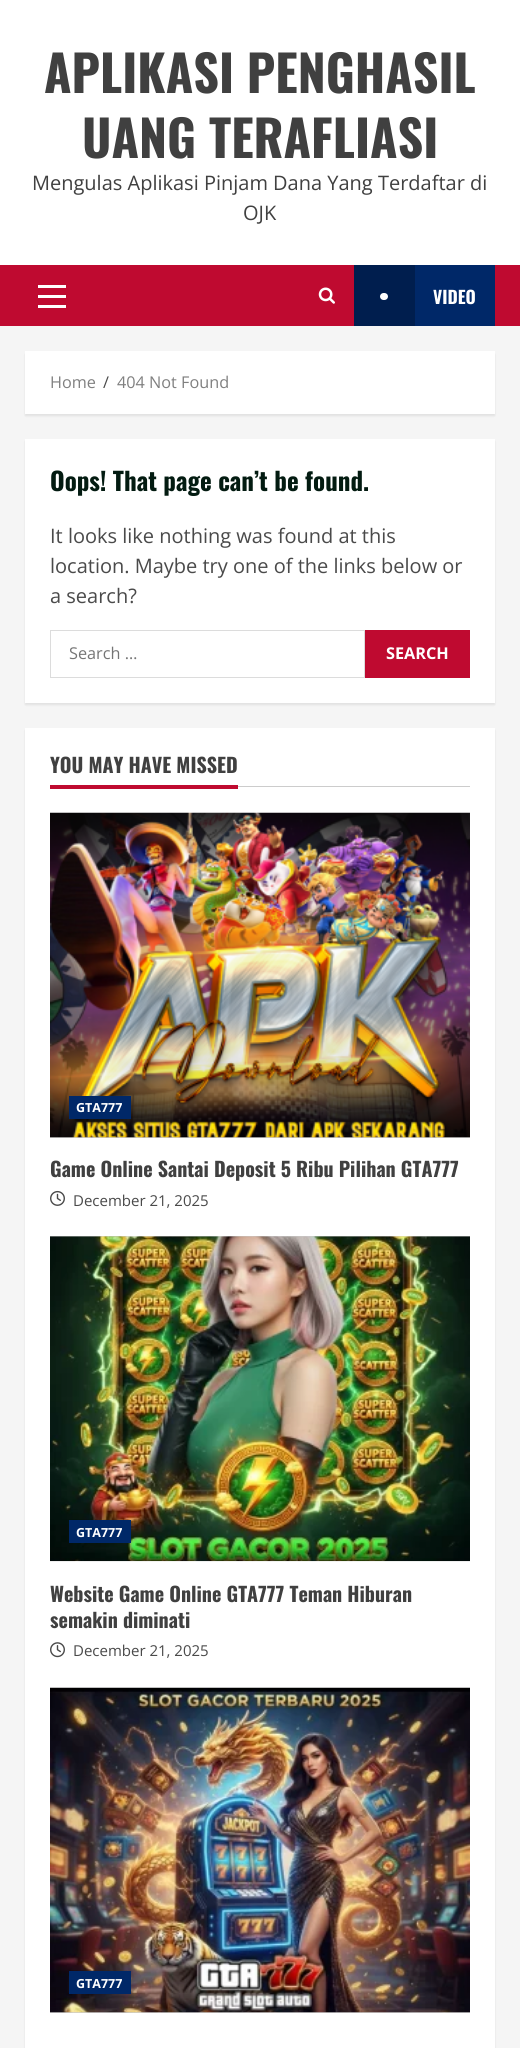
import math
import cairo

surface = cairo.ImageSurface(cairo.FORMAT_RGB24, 520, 2048)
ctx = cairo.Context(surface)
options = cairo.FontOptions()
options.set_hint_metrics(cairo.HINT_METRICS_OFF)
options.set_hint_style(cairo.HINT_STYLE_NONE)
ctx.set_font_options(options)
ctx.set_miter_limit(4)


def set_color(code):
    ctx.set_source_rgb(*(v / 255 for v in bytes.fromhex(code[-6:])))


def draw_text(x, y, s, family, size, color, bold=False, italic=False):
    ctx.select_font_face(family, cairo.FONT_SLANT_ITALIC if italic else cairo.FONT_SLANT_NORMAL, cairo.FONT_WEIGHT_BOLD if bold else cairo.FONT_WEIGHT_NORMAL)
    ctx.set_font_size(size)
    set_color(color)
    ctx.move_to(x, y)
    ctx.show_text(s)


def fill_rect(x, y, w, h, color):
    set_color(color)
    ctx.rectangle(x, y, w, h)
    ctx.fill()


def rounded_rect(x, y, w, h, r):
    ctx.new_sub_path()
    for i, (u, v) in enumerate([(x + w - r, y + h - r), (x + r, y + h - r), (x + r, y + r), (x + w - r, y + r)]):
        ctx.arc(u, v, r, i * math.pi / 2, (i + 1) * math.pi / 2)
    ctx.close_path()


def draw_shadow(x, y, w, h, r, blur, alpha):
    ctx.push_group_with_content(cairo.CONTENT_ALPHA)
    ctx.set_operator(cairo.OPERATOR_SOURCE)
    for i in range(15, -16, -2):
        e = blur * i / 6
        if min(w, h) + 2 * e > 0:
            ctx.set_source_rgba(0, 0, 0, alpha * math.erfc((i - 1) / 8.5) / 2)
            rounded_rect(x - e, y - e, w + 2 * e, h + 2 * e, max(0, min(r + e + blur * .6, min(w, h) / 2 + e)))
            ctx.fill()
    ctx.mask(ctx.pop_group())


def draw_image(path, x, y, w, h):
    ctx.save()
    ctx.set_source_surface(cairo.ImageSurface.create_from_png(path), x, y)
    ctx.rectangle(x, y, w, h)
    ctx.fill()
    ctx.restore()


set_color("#f5f5f5")
ctx.paint()
fill_rect(0, 0, 520, 265, "#ffffff")
draw_text(44, 93, "APLIKASI PENGHASIL", "Oswald", 50, "#404040", bold=True)
draw_text(82, 158, "UANG TERAFLIASI", "Oswald", 50, "#404040", bold=True)
draw_text(32, 190, "Mengulas Aplikasi Pinjam Dana Yang Terdaftar di", "Open Sans", 20, "#404040")
draw_text(243, 220, "OJK", "Open Sans", 20, "#404040")
fill_rect(0, 265, 520, 61, "#bf0a30")
fill_rect(38, 295, 28, 3, "#ffffff")
fill_rect(38, 285, 28, 3, "#ffffff")
fill_rect(38, 305, 28, 3, "#ffffff")
draw_image("assets/img1.png", 318, 287, 17, 17)
fill_rect(415, 265, 80, 61, "#002868")
fill_rect(354, 265, 61, 61, "#001e4e")
set_color("#ffffff")
rounded_rect(380, 293, 8, 7, 3.5)
ctx.fill()
draw_text(433, 304, "VIDEO", "Oswald", 17.5, "#ffffff", bold=True)
set_color("#000000")
draw_shadow(25, 354, 470, 62, 0, 1, 0.08)
fill_rect(25, 351, 470, 63, "#ffffff")
draw_text(50, 388, "Home", "Open Sans", 16.25, "#808080")
draw_text(103, 388, "/", "Open Sans", 16.25, "#4a4a4a")
draw_text(117, 388, "404 Not Found", "Open Sans", 16.25, "#808080")
set_color("#000000")
draw_shadow(25, 441, 470, 264, 0, 1, 0.08)
fill_rect(25, 439, 470, 264, "#ffffff")
draw_text(50, 491, "Oops! That page can’t be found.", "Oswald", 25, "#031b11", bold=True)
draw_text(50, 543, "It looks like nothing was found at this", "Open Sans", 20, "#4a4a4a")
draw_text(50, 573, "location. Maybe try one of the links below or", "Open Sans", 20, "#4a4a4a")
draw_text(50, 603, "a search?", "Open Sans", 20, "#4a4a4a")
ctx.rectangle(50.5, 630.5, 314, 47)
set_color("#dcdcdc")
ctx.set_line_width(1)
ctx.stroke()
draw_text(69, 659, "Search …", "Open Sans", 16.25, "#757575")
fill_rect(365, 630, 105, 48, "#bf0a30")
draw_text(386, 659, "SEARCH", "Open Sans", 16.25, "#ffffff", bold=True)
set_color("#000000")
draw_shadow(25, 730, 470, 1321, 0, 1, 0.08)
fill_rect(25, 728, 470, 1320, "#ffffff")
fill_rect(238, 786, 232, 1, "#cccccc")
draw_text(50, 773, "YOU MAY HAVE MISSED", "Oswald", 20, "#404040", bold=True)
fill_rect(50, 785, 188, 4, "#bf0a30")
fill_rect(50, 1137, 420, 1, "#cccccc")
draw_image("assets/img2.png", 50, 812, 420, 326)
fill_rect(69, 1096, 62, 23, "#002868")
draw_text(76, 1112, "GTA777", "Open Sans", 12.5, "#ffffff", bold=True)
draw_text(50, 1177, "Game Online Santai Deposit 5 Ribu Pilihan GTA777", "Oswald", 20, "#404040", bold=True)
draw_image("assets/img3.png", 50, 1190, 15, 16)
draw_text(73, 1206, "December 21, 2025", "Open Sans", 15, "#4a4a4a")
fill_rect(50, 1236, 420, 1, "#cccccc")
draw_image("assets/img4.png", 50, 1236, 420, 326)
fill_rect(69, 1520, 62, 23, "#002868")
draw_text(76, 1537, "GTA777", "Open Sans", 12.5, "#ffffff", bold=True)
draw_text(50, 1602, "Website Game Online GTA777 Teman Hiburan", "Oswald", 20, "#404040", bold=True)
draw_text(50, 1628, "semakin diminati", "Oswald", 20, "#404040", bold=True)
draw_image("assets/img5.png", 50, 1642, 15, 16)
draw_text(73, 1656, "December 21, 2025", "Open Sans", 15, "#4a4a4a")
fill_rect(50, 2012, 420, 1, "#cccccc")
draw_image("assets/img6.png", 50, 1687, 420, 326)
fill_rect(69, 1971, 62, 23, "#002868")
draw_text(76, 1988, "GTA777", "Open Sans", 12.5, "#ffffff", bold=True)
surface.write_to_png("output.png")
